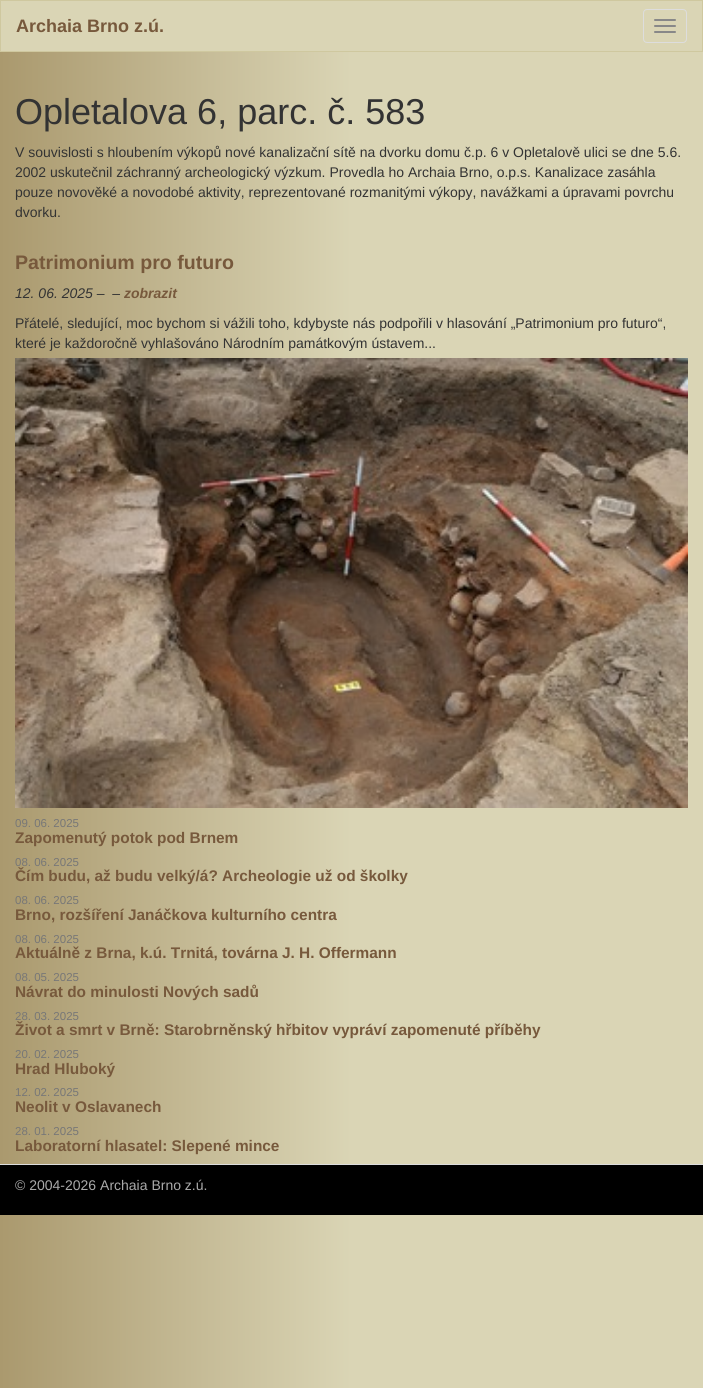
import math
import cairo

surface = cairo.ImageSurface(cairo.FORMAT_RGB24, 703, 1388)
ctx = cairo.Context(surface)
options = cairo.FontOptions()
options.set_hint_metrics(cairo.HINT_METRICS_OFF)
options.set_hint_style(cairo.HINT_STYLE_NONE)
ctx.set_font_options(options)
ctx.set_miter_limit(4)


def set_color(code):
    ctx.set_source_rgb(*(v / 255 for v in bytes.fromhex(code[-6:])))


def draw_text(x, y, s, family, size, color, bold=False, italic=False):
    ctx.select_font_face(family, cairo.FONT_SLANT_ITALIC if italic else cairo.FONT_SLANT_NORMAL, cairo.FONT_WEIGHT_BOLD if bold else cairo.FONT_WEIGHT_NORMAL)
    ctx.set_font_size(size)
    set_color(color)
    ctx.move_to(x, y)
    ctx.show_text(s)


def fill_rect(x, y, w, h, color):
    set_color(color)
    ctx.rectangle(x, y, w, h)
    ctx.fill()


def rounded_rect(x, y, w, h, r):
    ctx.new_sub_path()
    for i, (u, v) in enumerate([(x + w - r, y + h - r), (x + r, y + h - r), (x + r, y + r), (x + w - r, y + r)]):
        ctx.arc(u, v, r, i * math.pi / 2, (i + 1) * math.pi / 2)
    ctx.close_path()


def draw_image(path, x, y, w, h):
    ctx.save()
    ctx.set_source_surface(cairo.ImageSurface.create_from_png(path), x, y)
    ctx.rectangle(x, y, w, h)
    ctx.fill()
    ctx.restore()


set_color("#ffffff")
ctx.paint()
gradient = cairo.LinearGradient(0, 608, 703, 608)
gradient.add_color_stop_rgba(0, 0.667, 0.6, 0.431, 1)
gradient.add_color_stop_rgba(0.5, 0.855, 0.835, 0.71, 1)
ctx.set_source(gradient)
ctx.rectangle(0, 52, 703, 1336)
ctx.fill()
set_color("#dad5b5")
ctx.rectangle(0.5, 0.5, 702, 51)
ctx.fill_preserve()
set_color("#cfc89f")
ctx.set_line_width(1)
ctx.stroke()
draw_text(16, 32, "Archaia Brno z.ú.", "Liberation Sans", 18, "#77593c", bold=True)
rounded_rect(643.5, 9.5, 43, 33, 3.5)
set_color("#dddddd")
ctx.stroke()
set_color("#888888")
rounded_rect(654, 19, 22, 2, 1)
ctx.fill()
rounded_rect(654, 25, 22, 2, 1)
ctx.fill()
rounded_rect(654, 31, 22, 2, 1)
ctx.fill()
draw_text(15, 124, "Opletalova 6, parc. č. 583", "Liberation Sans", 36, "#333333")
draw_text(15, 157, "V souvislosti s hloubením výkopů nové kanalizační sítě na dvorku domu č.p. 6 v Opletalově ulici se dne 5.6.", "Liberation Sans", 14, "#333333")
draw_text(15, 177, "2002 uskutečnil záchranný archeologický výzkum. Provedla ho Archaia Brno, o.p.s. Kanalizace zasáhla", "Liberation Sans", 14, "#333333")
draw_text(15, 197, "pouze novověké a novodobé aktivity, reprezentované rozmanitými výkopy, navážkami a úpravami povrchu", "Liberation Sans", 14, "#333333")
draw_text(15, 217, "dvorku.", "Liberation Sans", 14, "#333333")
draw_text(15, 269, "Patrimonium pro futuro", "Liberation Sans", 19.6, "#77593c", bold=True)
draw_text(15, 298, "12. 06. 2025 –  –", "Liberation Sans", 14, "#333333", italic=True)
draw_text(124, 298, "zobrazit", "Liberation Sans", 14, "#77593c", bold=True, italic=True)
draw_text(15, 328, "Přátelé, sledující, moc bychom si vážili toho, kdybyste nás podpořili v hlasování „Patrimonium pro futuro“,", "Liberation Sans", 14, "#333333")
draw_text(15, 348, "které je každoročně vyhlašováno Národním památkovým ústavem...", "Liberation Sans", 14, "#333333")
draw_image("assets/img1.png", 15, 358, 673, 450)
draw_text(15, 827, "09. 06. 2025", "Liberation Sans", 11.5, "#777777")
draw_text(15, 843, "Zapomenutý potok pod Brnem", "Liberation Sans", 15.4, "#77593c", bold=True)
draw_text(15, 866, "08. 06. 2025", "Liberation Sans", 11.5, "#777777")
draw_text(15, 881, "Čím budu, až budu velký/á? Archeologie už od školky", "Liberation Sans", 15.4, "#77593c", bold=True)
draw_text(15, 904, "08. 06. 2025", "Liberation Sans", 11.5, "#777777")
draw_text(15, 920, "Brno, rozšíření Janáčkova kulturního centra", "Liberation Sans", 15.4, "#77593c", bold=True)
draw_text(15, 943, "08. 06. 2025", "Liberation Sans", 11.5, "#777777")
draw_text(15, 958, "Aktuálně z Brna, k.ú. Trnitá, továrna J. H. Offermann", "Liberation Sans", 15.4, "#77593c", bold=True)
draw_text(15, 981, "08. 05. 2025", "Liberation Sans", 11.5, "#777777")
draw_text(15, 997, "Návrat do minulosti Nových sadů", "Liberation Sans", 15.4, "#77593c", bold=True)
draw_text(15, 1020, "28. 03. 2025", "Liberation Sans", 11.5, "#777777")
draw_text(15, 1035, "Život a smrt v Brně: Starobrněnský hřbitov vypráví zapomenuté příběhy", "Liberation Sans", 15.4, "#77593c", bold=True)
draw_text(15, 1058, "20. 02. 2025", "Liberation Sans", 11.5, "#777777")
draw_text(15, 1074, "Hrad Hluboký", "Liberation Sans", 15.4, "#77593c", bold=True)
draw_text(15, 1096, "12. 02. 2025", "Liberation Sans", 11.5, "#777777")
draw_text(15, 1112, "Neolit v Oslavanech", "Liberation Sans", 15.4, "#77593c", bold=True)
draw_text(15, 1135, "28. 01. 2025", "Liberation Sans", 11.5, "#777777")
draw_text(15, 1151, "Laboratorní hlasatel: Slepené mince", "Liberation Sans", 15.4, "#77593c", bold=True)
fill_rect(0, 1165, 703, 50, "#000000")
fill_rect(0, 1164, 703, 1, "#dddddd")
draw_text(15, 1190, "© 2004-2026 Archaia Brno z.ú.", "Liberation Sans", 14, "#aaaaaa")
surface.write_to_png("output.png")
